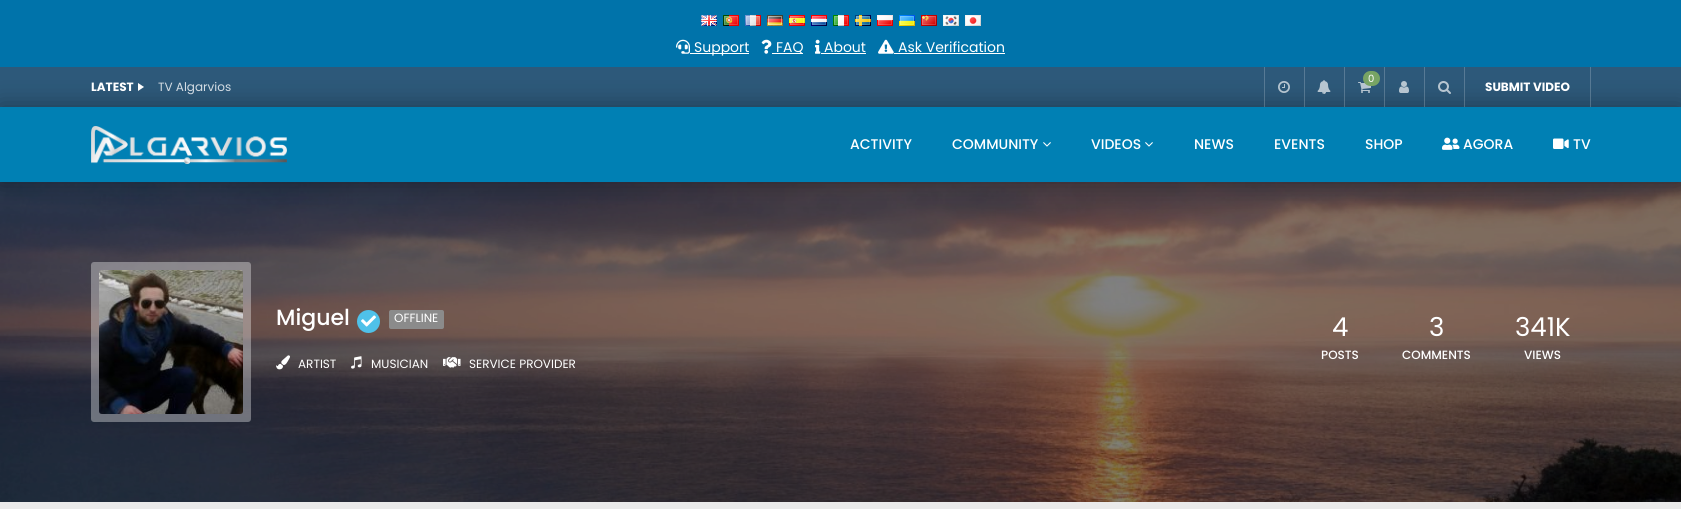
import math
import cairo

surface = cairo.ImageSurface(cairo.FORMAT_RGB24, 1681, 509)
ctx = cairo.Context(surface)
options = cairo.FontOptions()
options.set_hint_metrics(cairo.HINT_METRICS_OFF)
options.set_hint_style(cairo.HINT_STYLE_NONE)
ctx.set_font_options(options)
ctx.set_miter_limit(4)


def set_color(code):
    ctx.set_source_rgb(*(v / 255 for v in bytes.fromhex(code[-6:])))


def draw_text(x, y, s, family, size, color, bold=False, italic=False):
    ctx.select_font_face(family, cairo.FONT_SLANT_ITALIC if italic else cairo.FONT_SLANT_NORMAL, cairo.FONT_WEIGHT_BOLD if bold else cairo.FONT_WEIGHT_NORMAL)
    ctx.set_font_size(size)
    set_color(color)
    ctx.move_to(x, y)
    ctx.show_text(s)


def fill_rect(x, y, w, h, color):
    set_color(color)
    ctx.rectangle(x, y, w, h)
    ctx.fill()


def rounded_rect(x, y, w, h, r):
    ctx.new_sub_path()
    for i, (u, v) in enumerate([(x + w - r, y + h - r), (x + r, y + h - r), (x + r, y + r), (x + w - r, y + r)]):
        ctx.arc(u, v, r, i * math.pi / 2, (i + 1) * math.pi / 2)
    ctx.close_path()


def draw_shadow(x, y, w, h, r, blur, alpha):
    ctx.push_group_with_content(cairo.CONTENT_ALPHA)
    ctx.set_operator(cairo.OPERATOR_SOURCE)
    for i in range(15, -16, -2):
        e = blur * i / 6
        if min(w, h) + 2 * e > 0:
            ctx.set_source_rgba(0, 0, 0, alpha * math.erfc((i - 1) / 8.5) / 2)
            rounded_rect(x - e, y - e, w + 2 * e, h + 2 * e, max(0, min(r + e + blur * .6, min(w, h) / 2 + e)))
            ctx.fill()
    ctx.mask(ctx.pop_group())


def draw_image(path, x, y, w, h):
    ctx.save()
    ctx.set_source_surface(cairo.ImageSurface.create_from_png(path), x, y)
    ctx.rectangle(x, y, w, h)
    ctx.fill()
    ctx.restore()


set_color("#0073aa")
ctx.paint()
draw_image("assets/img1.png", 701, 15, 16, 11)
draw_image("assets/img2.png", 723, 15, 16, 11)
draw_image("assets/img3.png", 745, 15, 16, 11)
draw_image("assets/img4.png", 767, 15, 16, 11)
draw_image("assets/img5.png", 789, 15, 16, 11)
draw_image("assets/img6.png", 811, 15, 16, 11)
draw_image("assets/img7.png", 833, 15, 16, 11)
draw_image("assets/img8.png", 855, 15, 16, 11)
draw_image("assets/img9.png", 877, 15, 16, 11)
draw_image("assets/img10.png", 899, 15, 16, 11)
draw_image("assets/img11.png", 921, 15, 16, 11)
draw_image("assets/img12.png", 943, 15, 16, 11)
draw_image("assets/img13.png", 965, 15, 16, 11)
draw_image("assets/img14.png", 676, 39, 14, 15)
fill_rect(690, 53, 59, 1, "#ffffff")
draw_text(694, 52, "Support", "Poppins", 14, "#ffffff")
draw_image("assets/img15.png", 761, 39, 11, 15)
fill_rect(772, 53, 31, 1, "#ffffff")
draw_text(776, 52, "FAQ", "Poppins", 14, "#ffffff")
draw_image("assets/img16.png", 815, 39, 6, 15)
draw_text(824, 52, "About", "Poppins", 14, "#ffffff")
fill_rect(821, 53, 45, 1, "#ffffff")
draw_image("assets/img17.png", 878, 39, 16, 15)
draw_text(898, 52, "Ask Verification", "Poppins", 14, "#ffffff")
fill_rect(894, 53, 111, 1, "#ffffff")
fill_rect(0, 67, 1681, 40, "#2d597a")
draw_image("assets/img27.png", 0, 182, 1681, 320)
set_color("#000000")
draw_shadow(0, 107, 1681, 75, 0, 12.5, 0.35)
draw_text(91, 91, "LATEST", "Poppins", 12, "#ffffff", bold=True)
ctx.new_path()
ctx.move_to(138, 91)
ctx.line_to(138, 83)
ctx.line_to(144, 87)
ctx.close_path()
ctx.fill()
draw_text(158, 91, "TV Algarvios", "Poppins", 12, "#d5dde4")
ctx.set_source_rgba(1, 1, 1, 0.2)
ctx.rectangle(1264, 67, 1, 40)
ctx.fill()
draw_image("assets/img18.png", 1278, 81, 12, 12)
ctx.rectangle(1304, 67, 1, 40)
ctx.fill()
draw_image("assets/img19.png", 1317, 80, 14, 14)
ctx.rectangle(1344, 67, 1, 40)
ctx.fill()
draw_image("assets/img20.png", 1358, 82, 13, 11)
set_color("#77a464")
rounded_rect(1363, 71, 17, 15, 7.5)
ctx.fill()
draw_text(1368, 82, "0", "Poppins", 10, "#ffffff")
ctx.set_source_rgba(1, 1, 1, 0.2)
ctx.rectangle(1384, 67, 1, 40)
ctx.fill()
draw_image("assets/img21.png", 1399, 81, 10, 12)
ctx.rectangle(1424, 67, 1, 40)
ctx.fill()
draw_image("assets/img22.png", 1438, 81, 13, 13)
ctx.rectangle(1590, 67, 1, 40)
ctx.fill()
ctx.rectangle(1464, 67, 1, 40)
ctx.fill()
draw_text(1485, 91, "SUBMIT VIDEO", "Poppins", 12, "#ffffff", bold=True)
fill_rect(0, 107, 1681, 75, "#0080b4")
draw_image("assets/img23.png", 91, 126, 196, 38)
draw_text(850, 149, "ACTIVITY", "Poppins Medium", 14, "#ffffff")
draw_text(952, 149, "COMMUNITY", "Poppins Medium", 14, "#ffffff")
draw_image("assets/img24.png", 1043, 142, 8, 5)
draw_text(1091, 149, "VIDEOS", "Poppins Medium", 14, "#ffffff")
draw_image("assets/img24.png", 1145, 142, 8, 5)
draw_text(1194, 149, "NEWS", "Poppins Medium", 14, "#ffffff")
draw_text(1274, 149, "EVENTS", "Poppins Medium", 14, "#ffffff")
draw_text(1365, 149, "SHOP", "Poppins Medium", 14, "#ffffff")
draw_image("assets/img25.png", 1442, 137, 18, 13)
draw_text(1463, 149, "AGORA", "Poppins Medium", 14, "#ffffff")
draw_image("assets/img26.png", 1553, 138, 16, 11)
draw_text(1573, 149, "TV", "Poppins Medium", 14, "#ffffff")
fill_rect(0, 502, 1681, 7, "#eaeaea")
ctx.set_source_rgba(1, 1, 1, 0.35)
rounded_rect(91, 262, 160, 160, 3)
ctx.fill()
draw_image("assets/img28.png", 99, 270, 144, 144)
draw_text(276, 325, "Miguel", "Poppins Medium", 22, "#ffffff")
set_color("#4fc1e9")
ctx.new_path()
ctx.arc(368.5, 321.5, 11.5, 0, 2 * math.pi)
ctx.fill()
draw_image("assets/img29.png", 361, 315, 15, 12)
set_color("#8b8b8b")
rounded_rect(389, 310, 55, 19, 2)
ctx.fill()
draw_text(394, 322, "OFFLINE", "Poppins", 12, "#ffffff")
draw_image("assets/img30.png", 276, 355, 14, 15)
draw_text(298, 368, "ARTIST", "Poppins", 12, "#ffffff")
draw_image("assets/img31.png", 351, 356, 11, 13)
draw_text(371, 368, "MUSICIAN", "Poppins", 12, "#ffffff")
draw_image("assets/img32.png", 443, 357, 18, 11)
draw_text(469, 368, "SERVICE PROVIDER", "Poppins", 12, "#ffffff")
draw_text(1332, 336, "4", "Poppins", 26, "#ffffff")
draw_text(1321, 359, "POSTS", "Poppins Medium", 12, "#ffffff")
draw_text(1429, 336, "3", "Poppins", 26, "#ffffff")
draw_text(1402, 359, "COMMENTS", "Poppins Medium", 12, "#ffffff")
draw_text(1515, 336, "341K", "Poppins", 26, "#ffffff")
draw_text(1524, 359, "VIEWS", "Poppins Medium", 12, "#ffffff")
surface.write_to_png("output.png")
